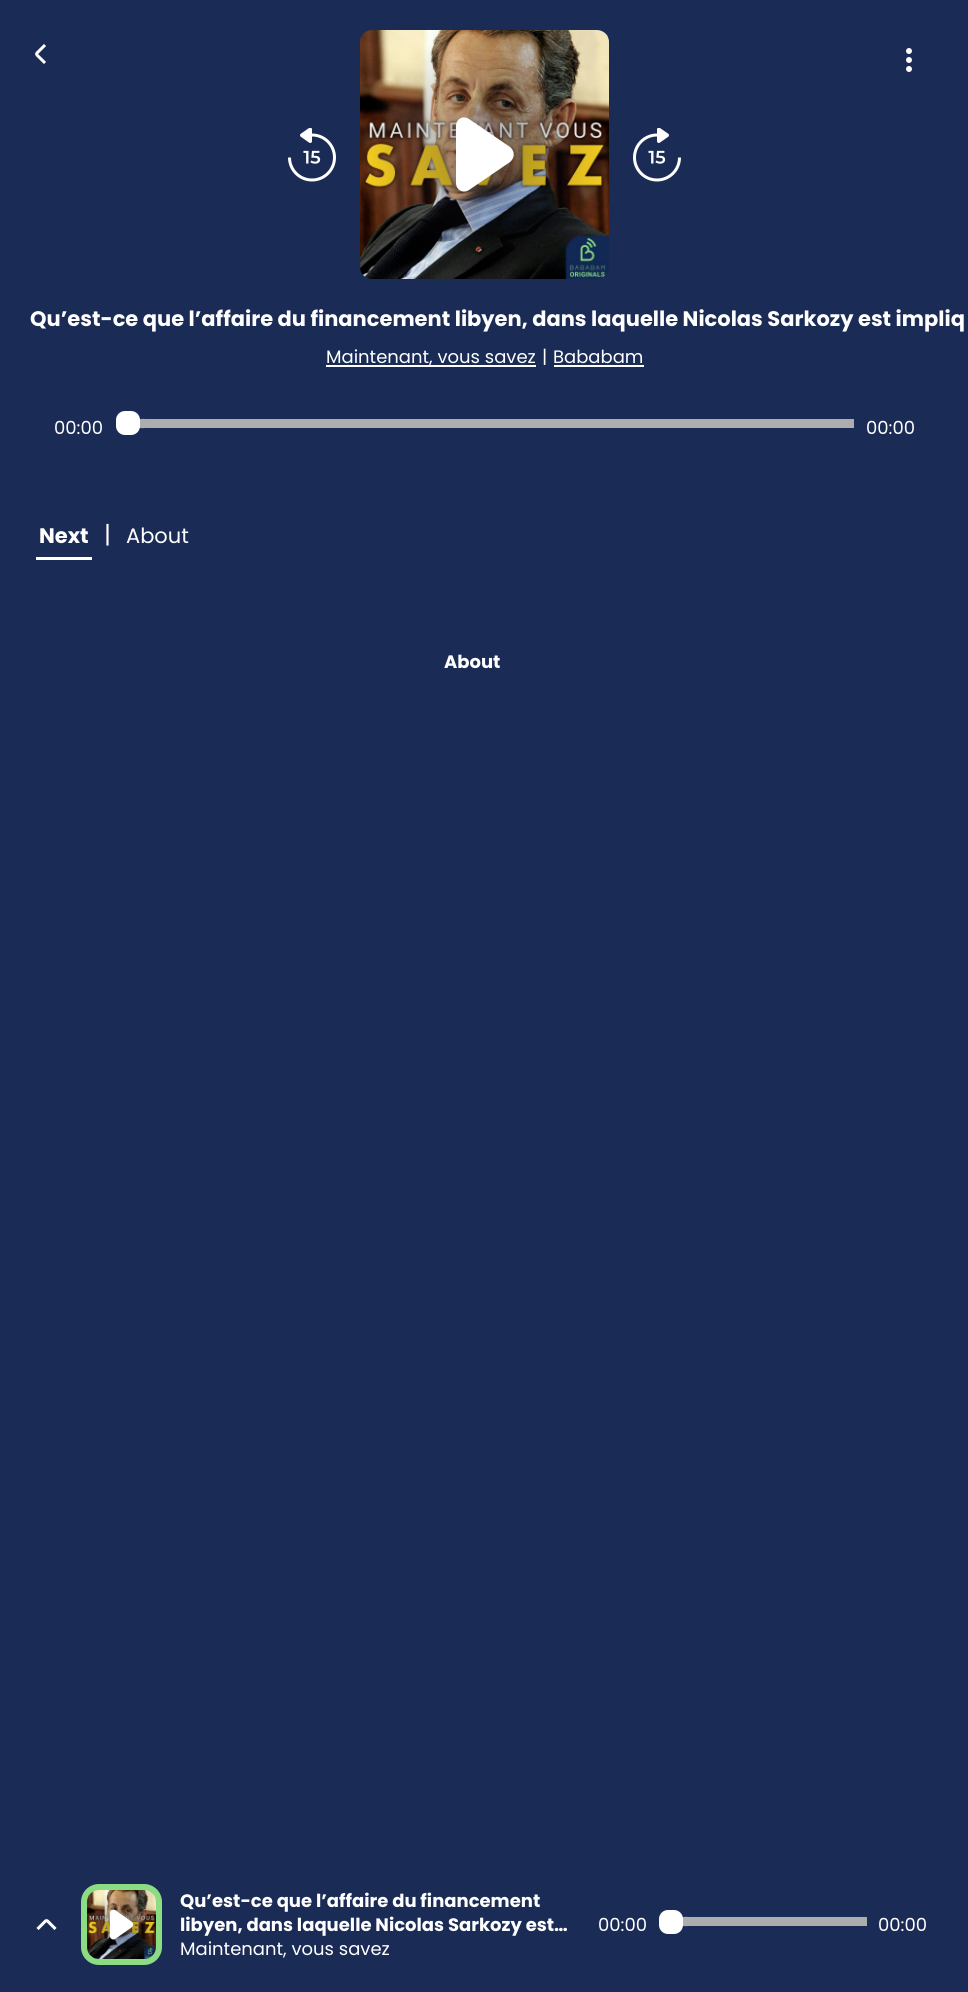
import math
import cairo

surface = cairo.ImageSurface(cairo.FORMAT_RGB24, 968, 1992)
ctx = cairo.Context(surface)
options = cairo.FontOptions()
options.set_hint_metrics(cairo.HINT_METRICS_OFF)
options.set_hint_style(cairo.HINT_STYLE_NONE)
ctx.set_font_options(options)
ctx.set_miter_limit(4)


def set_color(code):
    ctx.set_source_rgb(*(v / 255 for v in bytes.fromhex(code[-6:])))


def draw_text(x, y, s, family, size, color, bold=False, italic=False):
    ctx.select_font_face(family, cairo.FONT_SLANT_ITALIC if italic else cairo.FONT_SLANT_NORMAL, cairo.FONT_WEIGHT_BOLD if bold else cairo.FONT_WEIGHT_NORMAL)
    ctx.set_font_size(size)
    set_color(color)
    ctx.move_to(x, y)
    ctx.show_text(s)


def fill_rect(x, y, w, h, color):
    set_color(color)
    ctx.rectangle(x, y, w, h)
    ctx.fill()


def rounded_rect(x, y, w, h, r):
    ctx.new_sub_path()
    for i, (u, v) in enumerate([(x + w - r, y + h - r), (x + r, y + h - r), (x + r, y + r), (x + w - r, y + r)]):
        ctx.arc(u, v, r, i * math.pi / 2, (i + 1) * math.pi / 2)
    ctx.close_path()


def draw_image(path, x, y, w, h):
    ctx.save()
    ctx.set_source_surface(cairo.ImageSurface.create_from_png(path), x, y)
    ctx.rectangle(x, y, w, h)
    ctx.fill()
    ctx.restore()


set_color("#1a2c56")
ctx.paint()
draw_image("assets/img1.png", 360, 30, 249, 249)
gradient = cairo.RadialGradient(485, 155, 0, 485, 155, 125)
gradient.add_color_stop_rgba(0, 0.094, 0.09, 0.141, 0.4)
gradient.add_color_stop_rgba(1, 0.094, 0.09, 0.141, 0)
ctx.set_source(gradient)
ctx.rectangle(367, 37, 236, 227)
ctx.fill()
set_color("#ffffff")
ctx.new_path()
ctx.move_to(456, 183)
ctx.line_to(456, 126)
ctx.curve_to(456, 119, 463, 115, 469, 119)
ctx.line_to(510, 147)
ctx.curve_to(515, 151, 515, 158, 510, 162)
ctx.line_to(469, 190)
ctx.curve_to(463, 194, 456, 190, 456, 183)
ctx.close_path()
ctx.fill()
ctx.new_path()
ctx.move_to(45, 45)
ctx.line_to(37, 53)
ctx.curve_to(36.5, 53.5, 36.5, 54.5, 37, 55)
ctx.line_to(45, 63)
ctx.set_line_width(3)
ctx.stroke()
draw_image("assets/img2.png", 906, 48, 6, 24)
draw_image("assets/img3.png", 288, 128, 48, 54)
draw_image("assets/img4.png", 633, 128, 48, 54)
draw_text(30, 326, "Qu’est-ce que l’affaire du financement libyen, dans laquelle Nicolas Sarkozy est impliq", "Poppins", 21, "#ffffff", bold=True)
fill_rect(326, 365, 210, 2, "#ffffff")
draw_text(326, 363, "Maintenant, vous savez", "Poppins", 18, "#ffffff")
draw_text(542, 363, "|", "Poppins", 18, "#ffffff")
draw_text(553, 363, "Bababam", "Poppins", 18, "#ffffff")
fill_rect(554, 365, 90, 2, "#ffffff")
draw_text(54, 434, "00:00", "Poppins", 18, "#ffffff")
ctx.save()
ctx.rectangle(116, 393, 738, 60)
ctx.clip()
set_color("#adadad")
rounded_rect(846, 419, 9, 9, 1.5)
ctx.fill()
ctx.restore()
set_color("#adadad")
rounded_rect(845, 419, 9, 9, 1.5)
ctx.fill()
rounded_rect(843, 419, 9, 9, 1.5)
ctx.fill()
rounded_rect(842, 419, 9, 9, 1.5)
ctx.fill()
rounded_rect(840, 419, 9, 9, 1.5)
ctx.fill()
rounded_rect(839, 419, 9, 9, 1.5)
ctx.fill()
rounded_rect(837, 419, 9, 9, 1.5)
ctx.fill()
rounded_rect(836, 419, 9, 9, 1.5)
ctx.fill()
rounded_rect(834, 419, 9, 9, 1.5)
ctx.fill()
rounded_rect(833, 419, 9, 9, 1.5)
ctx.fill()
rounded_rect(831, 419, 9, 9, 1.5)
ctx.fill()
rounded_rect(830, 419, 9, 9, 1.5)
ctx.fill()
rounded_rect(828, 419, 9, 9, 1.5)
ctx.fill()
rounded_rect(827, 419, 9, 9, 1.5)
ctx.fill()
rounded_rect(825, 419, 9, 9, 1.5)
ctx.fill()
rounded_rect(824, 419, 9, 9, 1.5)
ctx.fill()
rounded_rect(822, 419, 9, 9, 1.5)
ctx.fill()
rounded_rect(821, 419, 9, 9, 1.5)
ctx.fill()
rounded_rect(819, 419, 9, 9, 1.5)
ctx.fill()
rounded_rect(818, 419, 9, 9, 1.5)
ctx.fill()
rounded_rect(816, 419, 9, 9, 1.5)
ctx.fill()
rounded_rect(815, 419, 9, 9, 1.5)
ctx.fill()
rounded_rect(813, 419, 9, 9, 1.5)
ctx.fill()
rounded_rect(812, 419, 9, 9, 1.5)
ctx.fill()
rounded_rect(810, 419, 9, 9, 1.5)
ctx.fill()
rounded_rect(809, 419, 9, 9, 1.5)
ctx.fill()
rounded_rect(807, 419, 9, 9, 1.5)
ctx.fill()
rounded_rect(806, 419, 9, 9, 1.5)
ctx.fill()
rounded_rect(804, 419, 9, 9, 1.5)
ctx.fill()
rounded_rect(803, 419, 9, 9, 1.5)
ctx.fill()
rounded_rect(801, 419, 9, 9, 1.5)
ctx.fill()
rounded_rect(800, 419, 9, 9, 1.5)
ctx.fill()
rounded_rect(798, 419, 9, 9, 1.5)
ctx.fill()
rounded_rect(797, 419, 9, 9, 1.5)
ctx.fill()
rounded_rect(795, 419, 9, 9, 1.5)
ctx.fill()
rounded_rect(794, 419, 9, 9, 1.5)
ctx.fill()
rounded_rect(792, 419, 9, 9, 1.5)
ctx.fill()
rounded_rect(791, 419, 9, 9, 1.5)
ctx.fill()
rounded_rect(789, 419, 9, 9, 1.5)
ctx.fill()
rounded_rect(788, 419, 9, 9, 1.5)
ctx.fill()
rounded_rect(786, 419, 9, 9, 1.5)
ctx.fill()
rounded_rect(785, 419, 9, 9, 1.5)
ctx.fill()
rounded_rect(783, 419, 9, 9, 1.5)
ctx.fill()
rounded_rect(782, 419, 9, 9, 1.5)
ctx.fill()
rounded_rect(780, 419, 9, 9, 1.5)
ctx.fill()
rounded_rect(779, 419, 9, 9, 1.5)
ctx.fill()
rounded_rect(777, 419, 9, 9, 1.5)
ctx.fill()
rounded_rect(776, 419, 9, 9, 1.5)
ctx.fill()
rounded_rect(774, 419, 9, 9, 1.5)
ctx.fill()
rounded_rect(773, 419, 9, 9, 1.5)
ctx.fill()
rounded_rect(771, 419, 9, 9, 1.5)
ctx.fill()
rounded_rect(770, 419, 9, 9, 1.5)
ctx.fill()
rounded_rect(768, 419, 9, 9, 1.5)
ctx.fill()
rounded_rect(767, 419, 9, 9, 1.5)
ctx.fill()
rounded_rect(765, 419, 9, 9, 1.5)
ctx.fill()
rounded_rect(764, 419, 9, 9, 1.5)
ctx.fill()
rounded_rect(762, 419, 9, 9, 1.5)
ctx.fill()
rounded_rect(761, 419, 9, 9, 1.5)
ctx.fill()
rounded_rect(759, 419, 9, 9, 1.5)
ctx.fill()
rounded_rect(758, 419, 9, 9, 1.5)
ctx.fill()
rounded_rect(756, 419, 9, 9, 1.5)
ctx.fill()
rounded_rect(755, 419, 9, 9, 1.5)
ctx.fill()
rounded_rect(753, 419, 9, 9, 1.5)
ctx.fill()
rounded_rect(752, 419, 9, 9, 1.5)
ctx.fill()
rounded_rect(750, 419, 9, 9, 1.5)
ctx.fill()
rounded_rect(749, 419, 9, 9, 1.5)
ctx.fill()
rounded_rect(747, 419, 9, 9, 1.5)
ctx.fill()
rounded_rect(746, 419, 9, 9, 1.5)
ctx.fill()
rounded_rect(744, 419, 9, 9, 1.5)
ctx.fill()
rounded_rect(743, 419, 9, 9, 1.5)
ctx.fill()
rounded_rect(741, 419, 9, 9, 1.5)
ctx.fill()
rounded_rect(740, 419, 9, 9, 1.5)
ctx.fill()
rounded_rect(738, 419, 9, 9, 1.5)
ctx.fill()
rounded_rect(737, 419, 9, 9, 1.5)
ctx.fill()
rounded_rect(735, 419, 9, 9, 1.5)
ctx.fill()
rounded_rect(734, 419, 9, 9, 1.5)
ctx.fill()
rounded_rect(732, 419, 9, 9, 1.5)
ctx.fill()
rounded_rect(731, 419, 9, 9, 1.5)
ctx.fill()
rounded_rect(729, 419, 9, 9, 1.5)
ctx.fill()
rounded_rect(728, 419, 9, 9, 1.5)
ctx.fill()
rounded_rect(726, 419, 9, 9, 1.5)
ctx.fill()
rounded_rect(725, 419, 9, 9, 1.5)
ctx.fill()
rounded_rect(723, 419, 9, 9, 1.5)
ctx.fill()
rounded_rect(722, 419, 9, 9, 1.5)
ctx.fill()
rounded_rect(720, 419, 9, 9, 1.5)
ctx.fill()
rounded_rect(719, 419, 9, 9, 1.5)
ctx.fill()
rounded_rect(717, 419, 9, 9, 1.5)
ctx.fill()
rounded_rect(716, 419, 9, 9, 1.5)
ctx.fill()
rounded_rect(714, 419, 9, 9, 1.5)
ctx.fill()
rounded_rect(713, 419, 9, 9, 1.5)
ctx.fill()
rounded_rect(711, 419, 9, 9, 1.5)
ctx.fill()
rounded_rect(710, 419, 9, 9, 1.5)
ctx.fill()
rounded_rect(708, 419, 9, 9, 1.5)
ctx.fill()
rounded_rect(707, 419, 9, 9, 1.5)
ctx.fill()
rounded_rect(705, 419, 9, 9, 1.5)
ctx.fill()
rounded_rect(704, 419, 9, 9, 1.5)
ctx.fill()
rounded_rect(702, 419, 9, 9, 1.5)
ctx.fill()
rounded_rect(701, 419, 9, 9, 1.5)
ctx.fill()
rounded_rect(699, 419, 9, 9, 1.5)
ctx.fill()
rounded_rect(698, 419, 9, 9, 1.5)
ctx.fill()
rounded_rect(696, 419, 9, 9, 1.5)
ctx.fill()
rounded_rect(695, 419, 9, 9, 1.5)
ctx.fill()
rounded_rect(693, 419, 9, 9, 1.5)
ctx.fill()
rounded_rect(692, 419, 9, 9, 1.5)
ctx.fill()
rounded_rect(690, 419, 9, 9, 1.5)
ctx.fill()
rounded_rect(689, 419, 9, 9, 1.5)
ctx.fill()
rounded_rect(687, 419, 9, 9, 1.5)
ctx.fill()
rounded_rect(686, 419, 9, 9, 1.5)
ctx.fill()
rounded_rect(684, 419, 9, 9, 1.5)
ctx.fill()
rounded_rect(683, 419, 9, 9, 1.5)
ctx.fill()
rounded_rect(681, 419, 9, 9, 1.5)
ctx.fill()
rounded_rect(680, 419, 9, 9, 1.5)
ctx.fill()
rounded_rect(678, 419, 9, 9, 1.5)
ctx.fill()
rounded_rect(677, 419, 9, 9, 1.5)
ctx.fill()
rounded_rect(675, 419, 9, 9, 1.5)
ctx.fill()
rounded_rect(674, 419, 9, 9, 1.5)
ctx.fill()
rounded_rect(672, 419, 9, 9, 1.5)
ctx.fill()
rounded_rect(671, 419, 9, 9, 1.5)
ctx.fill()
rounded_rect(669, 419, 9, 9, 1.5)
ctx.fill()
rounded_rect(668, 419, 9, 9, 1.5)
ctx.fill()
rounded_rect(666, 419, 9, 9, 1.5)
ctx.fill()
rounded_rect(665, 419, 9, 9, 1.5)
ctx.fill()
rounded_rect(663, 419, 9, 9, 1.5)
ctx.fill()
rounded_rect(662, 419, 9, 9, 1.5)
ctx.fill()
rounded_rect(660, 419, 9, 9, 1.5)
ctx.fill()
rounded_rect(659, 419, 9, 9, 1.5)
ctx.fill()
rounded_rect(657, 419, 9, 9, 1.5)
ctx.fill()
rounded_rect(656, 419, 9, 9, 1.5)
ctx.fill()
rounded_rect(654, 419, 9, 9, 1.5)
ctx.fill()
rounded_rect(653, 419, 9, 9, 1.5)
ctx.fill()
rounded_rect(651, 419, 9, 9, 1.5)
ctx.fill()
rounded_rect(650, 419, 9, 9, 1.5)
ctx.fill()
rounded_rect(648, 419, 9, 9, 1.5)
ctx.fill()
rounded_rect(647, 419, 9, 9, 1.5)
ctx.fill()
rounded_rect(645, 419, 9, 9, 1.5)
ctx.fill()
rounded_rect(644, 419, 9, 9, 1.5)
ctx.fill()
rounded_rect(642, 419, 9, 9, 1.5)
ctx.fill()
rounded_rect(641, 419, 9, 9, 1.5)
ctx.fill()
rounded_rect(639, 419, 9, 9, 1.5)
ctx.fill()
rounded_rect(638, 419, 9, 9, 1.5)
ctx.fill()
rounded_rect(636, 419, 9, 9, 1.5)
ctx.fill()
rounded_rect(635, 419, 9, 9, 1.5)
ctx.fill()
rounded_rect(633, 419, 9, 9, 1.5)
ctx.fill()
rounded_rect(632, 419, 9, 9, 1.5)
ctx.fill()
rounded_rect(630, 419, 9, 9, 1.5)
ctx.fill()
rounded_rect(629, 419, 9, 9, 1.5)
ctx.fill()
rounded_rect(627, 419, 9, 9, 1.5)
ctx.fill()
rounded_rect(626, 419, 9, 9, 1.5)
ctx.fill()
rounded_rect(624, 419, 9, 9, 1.5)
ctx.fill()
rounded_rect(623, 419, 9, 9, 1.5)
ctx.fill()
rounded_rect(621, 419, 9, 9, 1.5)
ctx.fill()
rounded_rect(620, 419, 9, 9, 1.5)
ctx.fill()
rounded_rect(618, 419, 9, 9, 1.5)
ctx.fill()
rounded_rect(617, 419, 9, 9, 1.5)
ctx.fill()
rounded_rect(615, 419, 9, 9, 1.5)
ctx.fill()
rounded_rect(614, 419, 9, 9, 1.5)
ctx.fill()
rounded_rect(612, 419, 9, 9, 1.5)
ctx.fill()
rounded_rect(611, 419, 9, 9, 1.5)
ctx.fill()
rounded_rect(609, 419, 9, 9, 1.5)
ctx.fill()
rounded_rect(608, 419, 9, 9, 1.5)
ctx.fill()
rounded_rect(606, 419, 9, 9, 1.5)
ctx.fill()
rounded_rect(605, 419, 9, 9, 1.5)
ctx.fill()
rounded_rect(603, 419, 9, 9, 1.5)
ctx.fill()
rounded_rect(602, 419, 9, 9, 1.5)
ctx.fill()
rounded_rect(600, 419, 9, 9, 1.5)
ctx.fill()
rounded_rect(599, 419, 9, 9, 1.5)
ctx.fill()
rounded_rect(597, 419, 9, 9, 1.5)
ctx.fill()
rounded_rect(596, 419, 9, 9, 1.5)
ctx.fill()
rounded_rect(594, 419, 9, 9, 1.5)
ctx.fill()
rounded_rect(593, 419, 9, 9, 1.5)
ctx.fill()
rounded_rect(591, 419, 9, 9, 1.5)
ctx.fill()
rounded_rect(590, 419, 9, 9, 1.5)
ctx.fill()
rounded_rect(588, 419, 9, 9, 1.5)
ctx.fill()
rounded_rect(587, 419, 9, 9, 1.5)
ctx.fill()
rounded_rect(585, 419, 9, 9, 1.5)
ctx.fill()
rounded_rect(584, 419, 9, 9, 1.5)
ctx.fill()
rounded_rect(582, 419, 9, 9, 1.5)
ctx.fill()
rounded_rect(581, 419, 9, 9, 1.5)
ctx.fill()
rounded_rect(579, 419, 9, 9, 1.5)
ctx.fill()
rounded_rect(578, 419, 9, 9, 1.5)
ctx.fill()
rounded_rect(576, 419, 9, 9, 1.5)
ctx.fill()
rounded_rect(575, 419, 9, 9, 1.5)
ctx.fill()
rounded_rect(573, 419, 9, 9, 1.5)
ctx.fill()
rounded_rect(572, 419, 9, 9, 1.5)
ctx.fill()
rounded_rect(570, 419, 9, 9, 1.5)
ctx.fill()
rounded_rect(569, 419, 9, 9, 1.5)
ctx.fill()
rounded_rect(567, 419, 9, 9, 1.5)
ctx.fill()
rounded_rect(566, 419, 9, 9, 1.5)
ctx.fill()
rounded_rect(564, 419, 9, 9, 1.5)
ctx.fill()
rounded_rect(563, 419, 9, 9, 1.5)
ctx.fill()
rounded_rect(561, 419, 9, 9, 1.5)
ctx.fill()
rounded_rect(560, 419, 9, 9, 1.5)
ctx.fill()
rounded_rect(558, 419, 9, 9, 1.5)
ctx.fill()
rounded_rect(557, 419, 9, 9, 1.5)
ctx.fill()
rounded_rect(555, 419, 9, 9, 1.5)
ctx.fill()
rounded_rect(554, 419, 9, 9, 1.5)
ctx.fill()
rounded_rect(552, 419, 9, 9, 1.5)
ctx.fill()
rounded_rect(551, 419, 9, 9, 1.5)
ctx.fill()
rounded_rect(549, 419, 9, 9, 1.5)
ctx.fill()
rounded_rect(548, 419, 9, 9, 1.5)
ctx.fill()
rounded_rect(546, 419, 9, 9, 1.5)
ctx.fill()
rounded_rect(545, 419, 9, 9, 1.5)
ctx.fill()
rounded_rect(543, 419, 9, 9, 1.5)
ctx.fill()
rounded_rect(542, 419, 9, 9, 1.5)
ctx.fill()
rounded_rect(540, 419, 9, 9, 1.5)
ctx.fill()
rounded_rect(539, 419, 9, 9, 1.5)
ctx.fill()
rounded_rect(537, 419, 9, 9, 1.5)
ctx.fill()
rounded_rect(536, 419, 9, 9, 1.5)
ctx.fill()
rounded_rect(534, 419, 9, 9, 1.5)
ctx.fill()
rounded_rect(533, 419, 9, 9, 1.5)
ctx.fill()
rounded_rect(531, 419, 9, 9, 1.5)
ctx.fill()
rounded_rect(530, 419, 9, 9, 1.5)
ctx.fill()
rounded_rect(528, 419, 9, 9, 1.5)
ctx.fill()
rounded_rect(527, 419, 9, 9, 1.5)
ctx.fill()
rounded_rect(525, 419, 9, 9, 1.5)
ctx.fill()
rounded_rect(524, 419, 9, 9, 1.5)
ctx.fill()
rounded_rect(522, 419, 9, 9, 1.5)
ctx.fill()
rounded_rect(521, 419, 9, 9, 1.5)
ctx.fill()
rounded_rect(519, 419, 9, 9, 1.5)
ctx.fill()
rounded_rect(518, 419, 9, 9, 1.5)
ctx.fill()
rounded_rect(516, 419, 9, 9, 1.5)
ctx.fill()
rounded_rect(515, 419, 9, 9, 1.5)
ctx.fill()
rounded_rect(513, 419, 9, 9, 1.5)
ctx.fill()
rounded_rect(512, 419, 9, 9, 1.5)
ctx.fill()
rounded_rect(510, 419, 9, 9, 1.5)
ctx.fill()
rounded_rect(509, 419, 9, 9, 1.5)
ctx.fill()
rounded_rect(507, 419, 9, 9, 1.5)
ctx.fill()
rounded_rect(506, 419, 9, 9, 1.5)
ctx.fill()
rounded_rect(504, 419, 9, 9, 1.5)
ctx.fill()
rounded_rect(503, 419, 9, 9, 1.5)
ctx.fill()
rounded_rect(501, 419, 9, 9, 1.5)
ctx.fill()
rounded_rect(500, 419, 9, 9, 1.5)
ctx.fill()
rounded_rect(498, 419, 9, 9, 1.5)
ctx.fill()
rounded_rect(497, 419, 9, 9, 1.5)
ctx.fill()
rounded_rect(495, 419, 9, 9, 1.5)
ctx.fill()
rounded_rect(494, 419, 9, 9, 1.5)
ctx.fill()
rounded_rect(492, 419, 9, 9, 1.5)
ctx.fill()
rounded_rect(491, 419, 9, 9, 1.5)
ctx.fill()
rounded_rect(489, 419, 9, 9, 1.5)
ctx.fill()
rounded_rect(488, 419, 9, 9, 1.5)
ctx.fill()
rounded_rect(486, 419, 9, 9, 1.5)
ctx.fill()
rounded_rect(485, 419, 9, 9, 1.5)
ctx.fill()
rounded_rect(483, 419, 9, 9, 1.5)
ctx.fill()
rounded_rect(482, 419, 9, 9, 1.5)
ctx.fill()
rounded_rect(480, 419, 9, 9, 1.5)
ctx.fill()
rounded_rect(479, 419, 9, 9, 1.5)
ctx.fill()
rounded_rect(477, 419, 9, 9, 1.5)
ctx.fill()
rounded_rect(476, 419, 9, 9, 1.5)
ctx.fill()
rounded_rect(474, 419, 9, 9, 1.5)
ctx.fill()
rounded_rect(473, 419, 9, 9, 1.5)
ctx.fill()
rounded_rect(471, 419, 9, 9, 1.5)
ctx.fill()
rounded_rect(470, 419, 9, 9, 1.5)
ctx.fill()
rounded_rect(468, 419, 9, 9, 1.5)
ctx.fill()
rounded_rect(467, 419, 9, 9, 1.5)
ctx.fill()
rounded_rect(465, 419, 9, 9, 1.5)
ctx.fill()
rounded_rect(464, 419, 9, 9, 1.5)
ctx.fill()
rounded_rect(462, 419, 9, 9, 1.5)
ctx.fill()
rounded_rect(461, 419, 9, 9, 1.5)
ctx.fill()
rounded_rect(459, 419, 9, 9, 1.5)
ctx.fill()
rounded_rect(458, 419, 9, 9, 1.5)
ctx.fill()
rounded_rect(456, 419, 9, 9, 1.5)
ctx.fill()
rounded_rect(455, 419, 9, 9, 1.5)
ctx.fill()
rounded_rect(453, 419, 9, 9, 1.5)
ctx.fill()
rounded_rect(452, 419, 9, 9, 1.5)
ctx.fill()
rounded_rect(450, 419, 9, 9, 1.5)
ctx.fill()
rounded_rect(449, 419, 9, 9, 1.5)
ctx.fill()
rounded_rect(447, 419, 9, 9, 1.5)
ctx.fill()
rounded_rect(446, 419, 9, 9, 1.5)
ctx.fill()
rounded_rect(444, 419, 9, 9, 1.5)
ctx.fill()
rounded_rect(443, 419, 9, 9, 1.5)
ctx.fill()
rounded_rect(441, 419, 9, 9, 1.5)
ctx.fill()
rounded_rect(440, 419, 9, 9, 1.5)
ctx.fill()
rounded_rect(438, 419, 9, 9, 1.5)
ctx.fill()
rounded_rect(437, 419, 9, 9, 1.5)
ctx.fill()
rounded_rect(435, 419, 9, 9, 1.5)
ctx.fill()
rounded_rect(434, 419, 9, 9, 1.5)
ctx.fill()
rounded_rect(432, 419, 9, 9, 1.5)
ctx.fill()
rounded_rect(431, 419, 9, 9, 1.5)
ctx.fill()
rounded_rect(429, 419, 9, 9, 1.5)
ctx.fill()
rounded_rect(428, 419, 9, 9, 1.5)
ctx.fill()
rounded_rect(426, 419, 9, 9, 1.5)
ctx.fill()
rounded_rect(425, 419, 9, 9, 1.5)
ctx.fill()
rounded_rect(423, 419, 9, 9, 1.5)
ctx.fill()
rounded_rect(422, 419, 9, 9, 1.5)
ctx.fill()
rounded_rect(420, 419, 9, 9, 1.5)
ctx.fill()
rounded_rect(419, 419, 9, 9, 1.5)
ctx.fill()
rounded_rect(417, 419, 9, 9, 1.5)
ctx.fill()
rounded_rect(416, 419, 9, 9, 1.5)
ctx.fill()
rounded_rect(414, 419, 9, 9, 1.5)
ctx.fill()
rounded_rect(413, 419, 9, 9, 1.5)
ctx.fill()
rounded_rect(411, 419, 9, 9, 1.5)
ctx.fill()
rounded_rect(410, 419, 9, 9, 1.5)
ctx.fill()
rounded_rect(408, 419, 9, 9, 1.5)
ctx.fill()
rounded_rect(407, 419, 9, 9, 1.5)
ctx.fill()
rounded_rect(405, 419, 9, 9, 1.5)
ctx.fill()
rounded_rect(404, 419, 9, 9, 1.5)
ctx.fill()
rounded_rect(402, 419, 9, 9, 1.5)
ctx.fill()
rounded_rect(401, 419, 9, 9, 1.5)
ctx.fill()
rounded_rect(399, 419, 9, 9, 1.5)
ctx.fill()
rounded_rect(398, 419, 9, 9, 1.5)
ctx.fill()
rounded_rect(396, 419, 9, 9, 1.5)
ctx.fill()
rounded_rect(395, 419, 9, 9, 1.5)
ctx.fill()
rounded_rect(393, 419, 9, 9, 1.5)
ctx.fill()
rounded_rect(392, 419, 9, 9, 1.5)
ctx.fill()
rounded_rect(390, 419, 9, 9, 1.5)
ctx.fill()
rounded_rect(389, 419, 9, 9, 1.5)
ctx.fill()
rounded_rect(387, 419, 9, 9, 1.5)
ctx.fill()
rounded_rect(386, 419, 9, 9, 1.5)
ctx.fill()
rounded_rect(384, 419, 9, 9, 1.5)
ctx.fill()
rounded_rect(383, 419, 9, 9, 1.5)
ctx.fill()
rounded_rect(381, 419, 9, 9, 1.5)
ctx.fill()
rounded_rect(380, 419, 9, 9, 1.5)
ctx.fill()
rounded_rect(378, 419, 9, 9, 1.5)
ctx.fill()
rounded_rect(377, 419, 9, 9, 1.5)
ctx.fill()
rounded_rect(375, 419, 9, 9, 1.5)
ctx.fill()
rounded_rect(374, 419, 9, 9, 1.5)
ctx.fill()
rounded_rect(372, 419, 9, 9, 1.5)
ctx.fill()
rounded_rect(371, 419, 9, 9, 1.5)
ctx.fill()
rounded_rect(369, 419, 9, 9, 1.5)
ctx.fill()
rounded_rect(368, 419, 9, 9, 1.5)
ctx.fill()
rounded_rect(366, 419, 9, 9, 1.5)
ctx.fill()
rounded_rect(365, 419, 9, 9, 1.5)
ctx.fill()
rounded_rect(363, 419, 9, 9, 1.5)
ctx.fill()
rounded_rect(362, 419, 9, 9, 1.5)
ctx.fill()
rounded_rect(360, 419, 9, 9, 1.5)
ctx.fill()
rounded_rect(359, 419, 9, 9, 1.5)
ctx.fill()
rounded_rect(357, 419, 9, 9, 1.5)
ctx.fill()
rounded_rect(356, 419, 9, 9, 1.5)
ctx.fill()
rounded_rect(354, 419, 9, 9, 1.5)
ctx.fill()
rounded_rect(353, 419, 9, 9, 1.5)
ctx.fill()
rounded_rect(351, 419, 9, 9, 1.5)
ctx.fill()
rounded_rect(350, 419, 9, 9, 1.5)
ctx.fill()
rounded_rect(348, 419, 9, 9, 1.5)
ctx.fill()
rounded_rect(347, 419, 9, 9, 1.5)
ctx.fill()
rounded_rect(345, 419, 9, 9, 1.5)
ctx.fill()
rounded_rect(344, 419, 9, 9, 1.5)
ctx.fill()
rounded_rect(342, 419, 9, 9, 1.5)
ctx.fill()
rounded_rect(341, 419, 9, 9, 1.5)
ctx.fill()
rounded_rect(339, 419, 9, 9, 1.5)
ctx.fill()
rounded_rect(338, 419, 9, 9, 1.5)
ctx.fill()
rounded_rect(336, 419, 9, 9, 1.5)
ctx.fill()
rounded_rect(335, 419, 9, 9, 1.5)
ctx.fill()
rounded_rect(333, 419, 9, 9, 1.5)
ctx.fill()
rounded_rect(332, 419, 9, 9, 1.5)
ctx.fill()
rounded_rect(330, 419, 9, 9, 1.5)
ctx.fill()
rounded_rect(329, 419, 9, 9, 1.5)
ctx.fill()
rounded_rect(327, 419, 9, 9, 1.5)
ctx.fill()
rounded_rect(326, 419, 9, 9, 1.5)
ctx.fill()
rounded_rect(324, 419, 9, 9, 1.5)
ctx.fill()
rounded_rect(323, 419, 9, 9, 1.5)
ctx.fill()
rounded_rect(321, 419, 9, 9, 1.5)
ctx.fill()
rounded_rect(320, 419, 9, 9, 1.5)
ctx.fill()
rounded_rect(318, 419, 9, 9, 1.5)
ctx.fill()
rounded_rect(317, 419, 9, 9, 1.5)
ctx.fill()
rounded_rect(315, 419, 9, 9, 1.5)
ctx.fill()
rounded_rect(314, 419, 9, 9, 1.5)
ctx.fill()
rounded_rect(312, 419, 9, 9, 1.5)
ctx.fill()
rounded_rect(311, 419, 9, 9, 1.5)
ctx.fill()
rounded_rect(309, 419, 9, 9, 1.5)
ctx.fill()
rounded_rect(308, 419, 9, 9, 1.5)
ctx.fill()
rounded_rect(306, 419, 9, 9, 1.5)
ctx.fill()
rounded_rect(305, 419, 9, 9, 1.5)
ctx.fill()
rounded_rect(303, 419, 9, 9, 1.5)
ctx.fill()
rounded_rect(302, 419, 9, 9, 1.5)
ctx.fill()
rounded_rect(300, 419, 9, 9, 1.5)
ctx.fill()
rounded_rect(299, 419, 9, 9, 1.5)
ctx.fill()
rounded_rect(297, 419, 9, 9, 1.5)
ctx.fill()
rounded_rect(296, 419, 9, 9, 1.5)
ctx.fill()
rounded_rect(294, 419, 9, 9, 1.5)
ctx.fill()
rounded_rect(293, 419, 9, 9, 1.5)
ctx.fill()
rounded_rect(291, 419, 9, 9, 1.5)
ctx.fill()
rounded_rect(290, 419, 9, 9, 1.5)
ctx.fill()
rounded_rect(288, 419, 9, 9, 1.5)
ctx.fill()
rounded_rect(287, 419, 9, 9, 1.5)
ctx.fill()
rounded_rect(285, 419, 9, 9, 1.5)
ctx.fill()
rounded_rect(284, 419, 9, 9, 1.5)
ctx.fill()
rounded_rect(282, 419, 9, 9, 1.5)
ctx.fill()
rounded_rect(281, 419, 9, 9, 1.5)
ctx.fill()
rounded_rect(279, 419, 9, 9, 1.5)
ctx.fill()
rounded_rect(278, 419, 9, 9, 1.5)
ctx.fill()
rounded_rect(276, 419, 9, 9, 1.5)
ctx.fill()
rounded_rect(275, 419, 9, 9, 1.5)
ctx.fill()
rounded_rect(273, 419, 9, 9, 1.5)
ctx.fill()
rounded_rect(272, 419, 9, 9, 1.5)
ctx.fill()
rounded_rect(270, 419, 9, 9, 1.5)
ctx.fill()
rounded_rect(269, 419, 9, 9, 1.5)
ctx.fill()
rounded_rect(267, 419, 9, 9, 1.5)
ctx.fill()
rounded_rect(266, 419, 9, 9, 1.5)
ctx.fill()
rounded_rect(264, 419, 9, 9, 1.5)
ctx.fill()
rounded_rect(263, 419, 9, 9, 1.5)
ctx.fill()
rounded_rect(261, 419, 9, 9, 1.5)
ctx.fill()
rounded_rect(260, 419, 9, 9, 1.5)
ctx.fill()
rounded_rect(258, 419, 9, 9, 1.5)
ctx.fill()
rounded_rect(257, 419, 9, 9, 1.5)
ctx.fill()
rounded_rect(255, 419, 9, 9, 1.5)
ctx.fill()
rounded_rect(254, 419, 9, 9, 1.5)
ctx.fill()
rounded_rect(252, 419, 9, 9, 1.5)
ctx.fill()
rounded_rect(251, 419, 9, 9, 1.5)
ctx.fill()
rounded_rect(249, 419, 9, 9, 1.5)
ctx.fill()
rounded_rect(248, 419, 9, 9, 1.5)
ctx.fill()
rounded_rect(246, 419, 9, 9, 1.5)
ctx.fill()
rounded_rect(245, 419, 9, 9, 1.5)
ctx.fill()
rounded_rect(243, 419, 9, 9, 1.5)
ctx.fill()
rounded_rect(242, 419, 9, 9, 1.5)
ctx.fill()
rounded_rect(240, 419, 9, 9, 1.5)
ctx.fill()
rounded_rect(239, 419, 9, 9, 1.5)
ctx.fill()
rounded_rect(237, 419, 9, 9, 1.5)
ctx.fill()
rounded_rect(236, 419, 9, 9, 1.5)
ctx.fill()
rounded_rect(234, 419, 9, 9, 1.5)
ctx.fill()
rounded_rect(233, 419, 9, 9, 1.5)
ctx.fill()
rounded_rect(231, 419, 9, 9, 1.5)
ctx.fill()
rounded_rect(230, 419, 9, 9, 1.5)
ctx.fill()
rounded_rect(228, 419, 9, 9, 1.5)
ctx.fill()
rounded_rect(227, 419, 9, 9, 1.5)
ctx.fill()
rounded_rect(225, 419, 9, 9, 1.5)
ctx.fill()
rounded_rect(224, 419, 9, 9, 1.5)
ctx.fill()
rounded_rect(222, 419, 9, 9, 1.5)
ctx.fill()
rounded_rect(221, 419, 9, 9, 1.5)
ctx.fill()
rounded_rect(219, 419, 9, 9, 1.5)
ctx.fill()
rounded_rect(218, 419, 9, 9, 1.5)
ctx.fill()
rounded_rect(216, 419, 9, 9, 1.5)
ctx.fill()
rounded_rect(215, 419, 9, 9, 1.5)
ctx.fill()
rounded_rect(213, 419, 9, 9, 1.5)
ctx.fill()
rounded_rect(212, 419, 9, 9, 1.5)
ctx.fill()
rounded_rect(210, 419, 9, 9, 1.5)
ctx.fill()
rounded_rect(209, 419, 9, 9, 1.5)
ctx.fill()
rounded_rect(207, 419, 9, 9, 1.5)
ctx.fill()
rounded_rect(206, 419, 9, 9, 1.5)
ctx.fill()
rounded_rect(204, 419, 9, 9, 1.5)
ctx.fill()
rounded_rect(203, 419, 9, 9, 1.5)
ctx.fill()
rounded_rect(201, 419, 9, 9, 1.5)
ctx.fill()
rounded_rect(200, 419, 9, 9, 1.5)
ctx.fill()
rounded_rect(198, 419, 9, 9, 1.5)
ctx.fill()
rounded_rect(197, 419, 9, 9, 1.5)
ctx.fill()
rounded_rect(195, 419, 9, 9, 1.5)
ctx.fill()
rounded_rect(194, 419, 9, 9, 1.5)
ctx.fill()
rounded_rect(192, 419, 9, 9, 1.5)
ctx.fill()
rounded_rect(191, 419, 9, 9, 1.5)
ctx.fill()
rounded_rect(189, 419, 9, 9, 1.5)
ctx.fill()
rounded_rect(188, 419, 9, 9, 1.5)
ctx.fill()
rounded_rect(186, 419, 9, 9, 1.5)
ctx.fill()
rounded_rect(185, 419, 9, 9, 1.5)
ctx.fill()
rounded_rect(183, 419, 9, 9, 1.5)
ctx.fill()
rounded_rect(182, 419, 9, 9, 1.5)
ctx.fill()
rounded_rect(180, 419, 9, 9, 1.5)
ctx.fill()
rounded_rect(179, 419, 9, 9, 1.5)
ctx.fill()
rounded_rect(177, 419, 9, 9, 1.5)
ctx.fill()
rounded_rect(176, 419, 9, 9, 1.5)
ctx.fill()
rounded_rect(174, 419, 9, 9, 1.5)
ctx.fill()
rounded_rect(173, 419, 9, 9, 1.5)
ctx.fill()
rounded_rect(171, 419, 9, 9, 1.5)
ctx.fill()
rounded_rect(170, 419, 9, 9, 1.5)
ctx.fill()
rounded_rect(168, 419, 9, 9, 1.5)
ctx.fill()
rounded_rect(167, 419, 9, 9, 1.5)
ctx.fill()
rounded_rect(165, 419, 9, 9, 1.5)
ctx.fill()
rounded_rect(164, 419, 9, 9, 1.5)
ctx.fill()
rounded_rect(162, 419, 9, 9, 1.5)
ctx.fill()
rounded_rect(161, 419, 9, 9, 1.5)
ctx.fill()
rounded_rect(159, 419, 9, 9, 1.5)
ctx.fill()
rounded_rect(158, 419, 9, 9, 1.5)
ctx.fill()
rounded_rect(156, 419, 9, 9, 1.5)
ctx.fill()
rounded_rect(155, 419, 9, 9, 1.5)
ctx.fill()
rounded_rect(153, 419, 9, 9, 1.5)
ctx.fill()
rounded_rect(152, 419, 9, 9, 1.5)
ctx.fill()
rounded_rect(150, 419, 9, 9, 1.5)
ctx.fill()
rounded_rect(149, 419, 9, 9, 1.5)
ctx.fill()
rounded_rect(147, 419, 9, 9, 1.5)
ctx.fill()
rounded_rect(146, 419, 9, 9, 1.5)
ctx.fill()
rounded_rect(144, 419, 9, 9, 1.5)
ctx.fill()
rounded_rect(143, 419, 9, 9, 1.5)
ctx.fill()
rounded_rect(141, 419, 9, 9, 1.5)
ctx.fill()
rounded_rect(140, 419, 9, 9, 1.5)
ctx.fill()
ctx.new_path()
ctx.move_to(139.5, 419)
ctx.line_to(139.5, 428)
ctx.line_to(143.5, 428)
ctx.curve_to(147, 428, 147, 428, 147, 424.5)
ctx.curve_to(147, 423, 148, 419, 145.5, 419)
ctx.close_path()
ctx.fill()
ctx.new_path()
ctx.move_to(139.5, 428)
ctx.curve_to(145, 428, 146, 429.5, 146, 423.5)
ctx.curve_to(146, 417.5, 145.5, 419, 139.5, 419)
ctx.close_path()
ctx.fill()
ctx.new_path()
ctx.move_to(139.5, 428)
ctx.curve_to(144, 428, 144, 428.5, 144, 423.5)
ctx.curve_to(144, 418.5, 144, 419, 139.5, 419)
ctx.close_path()
ctx.fill()
ctx.new_path()
ctx.move_to(139.5, 428)
ctx.curve_to(143.5, 428, 143, 427.5, 143, 423.5)
ctx.curve_to(143, 419.5, 143.5, 419, 139.5, 419)
ctx.close_path()
ctx.fill()
ctx.new_path()
ctx.move_to(139.5, 428)
ctx.curve_to(141.5, 428, 141, 425, 141, 423.5)
ctx.curve_to(141, 422, 141.5, 419, 139.5, 419)
ctx.close_path()
ctx.fill()
set_color("#ffffff")
rounded_rect(116, 411, 24, 24, 9)
ctx.fill()
draw_text(866, 434, "00:00", "Poppins", 18, "#ffffff")
draw_text(39, 543, "Next", "Poppins", 21, "#ffffff", bold=True)
fill_rect(36, 557, 56, 3, "#ffffff")
draw_text(104, 543, "|", "Poppins", 24, "#ffffff")
draw_text(126, 543, "About", "Poppins", 21, "#ffffff")
draw_text(444, 668, "About", "Poppins", 18, "#ffffff", bold=True)
ctx.new_path()
ctx.move_to(55.5, 1929)
ctx.line_to(47.5, 1921)
ctx.curve_to(47, 1920.5, 46, 1920.5, 45.5, 1921)
ctx.line_to(37.5, 1929)
ctx.stroke()
set_color("#8bdc82")
ctx.new_path()
ctx.move_to(99, 1884)
ctx.line_to(144, 1884)
ctx.curve_to(154, 1884, 162, 1892, 162, 1902)
ctx.line_to(162, 1947)
ctx.curve_to(162, 1957, 154, 1965, 144, 1965)
ctx.line_to(99, 1965)
ctx.curve_to(89, 1965, 81, 1957, 81, 1947)
ctx.line_to(81, 1902)
ctx.curve_to(81, 1892, 89, 1884, 99, 1884)
ctx.close_path()
ctx.fill()
draw_image("assets/img5.png", 87, 1890, 69, 69)
gradient = cairo.RadialGradient(122, 1925, 0, 122, 1925, 35)
gradient.add_color_stop_rgba(0, 0.094, 0.09, 0.141, 0.4)
gradient.add_color_stop_rgba(1, 0.094, 0.09, 0.141, 0)
ctx.set_source(gradient)
ctx.rectangle(89, 1892, 65, 63)
ctx.fill()
draw_image("assets/img6.png", 109, 1910, 25, 30)
draw_text(180, 1907, "Qu’est-ce que l’affaire du financement", "Poppins", 18, "#ffffff", bold=True)
draw_text(180, 1931, "libyen, dans laquelle Nicolas Sarkozy est…", "Poppins", 18, "#ffffff", bold=True)
draw_text(180, 1955, "Maintenant, vous savez", "Poppins", 18, "#ffffff")
draw_text(598, 1931, "00:00", "Poppins", 18, "#ffffff")
fill_rect(865, 1917, 2, 9, "#adadad")
rounded_rect(858, 1917, 9, 9, 1.5)
ctx.fill()
rounded_rect(857, 1917, 9, 9, 1.5)
ctx.fill()
rounded_rect(855, 1917, 9, 9, 1.5)
ctx.fill()
rounded_rect(854, 1917, 9, 9, 1.5)
ctx.fill()
rounded_rect(852, 1917, 9, 9, 1.5)
ctx.fill()
rounded_rect(851, 1917, 9, 9, 1.5)
ctx.fill()
rounded_rect(849, 1917, 9, 9, 1.5)
ctx.fill()
rounded_rect(848, 1917, 9, 9, 1.5)
ctx.fill()
rounded_rect(846, 1917, 9, 9, 1.5)
ctx.fill()
rounded_rect(845, 1917, 9, 9, 1.5)
ctx.fill()
rounded_rect(843, 1917, 9, 9, 1.5)
ctx.fill()
rounded_rect(842, 1917, 9, 9, 1.5)
ctx.fill()
rounded_rect(840, 1917, 9, 9, 1.5)
ctx.fill()
rounded_rect(839, 1917, 9, 9, 1.5)
ctx.fill()
rounded_rect(837, 1917, 9, 9, 1.5)
ctx.fill()
rounded_rect(836, 1917, 9, 9, 1.5)
ctx.fill()
rounded_rect(834, 1917, 9, 9, 1.5)
ctx.fill()
rounded_rect(833, 1917, 9, 9, 1.5)
ctx.fill()
rounded_rect(831, 1917, 9, 9, 1.5)
ctx.fill()
rounded_rect(830, 1917, 9, 9, 1.5)
ctx.fill()
rounded_rect(828, 1917, 9, 9, 1.5)
ctx.fill()
rounded_rect(827, 1917, 9, 9, 1.5)
ctx.fill()
rounded_rect(825, 1917, 9, 9, 1.5)
ctx.fill()
rounded_rect(824, 1917, 9, 9, 1.5)
ctx.fill()
rounded_rect(822, 1917, 9, 9, 1.5)
ctx.fill()
rounded_rect(821, 1917, 9, 9, 1.5)
ctx.fill()
rounded_rect(819, 1917, 9, 9, 1.5)
ctx.fill()
rounded_rect(818, 1917, 9, 9, 1.5)
ctx.fill()
rounded_rect(816, 1917, 9, 9, 1.5)
ctx.fill()
rounded_rect(815, 1917, 9, 9, 1.5)
ctx.fill()
rounded_rect(813, 1917, 9, 9, 1.5)
ctx.fill()
rounded_rect(812, 1917, 9, 9, 1.5)
ctx.fill()
rounded_rect(810, 1917, 9, 9, 1.5)
ctx.fill()
rounded_rect(809, 1917, 9, 9, 1.5)
ctx.fill()
rounded_rect(807, 1917, 9, 9, 1.5)
ctx.fill()
rounded_rect(806, 1917, 9, 9, 1.5)
ctx.fill()
rounded_rect(804, 1917, 9, 9, 1.5)
ctx.fill()
rounded_rect(803, 1917, 9, 9, 1.5)
ctx.fill()
rounded_rect(801, 1917, 9, 9, 1.5)
ctx.fill()
rounded_rect(800, 1917, 9, 9, 1.5)
ctx.fill()
rounded_rect(798, 1917, 9, 9, 1.5)
ctx.fill()
rounded_rect(797, 1917, 9, 9, 1.5)
ctx.fill()
rounded_rect(795, 1917, 9, 9, 1.5)
ctx.fill()
rounded_rect(794, 1917, 9, 9, 1.5)
ctx.fill()
rounded_rect(792, 1917, 9, 9, 1.5)
ctx.fill()
rounded_rect(791, 1917, 9, 9, 1.5)
ctx.fill()
rounded_rect(789, 1917, 9, 9, 1.5)
ctx.fill()
rounded_rect(788, 1917, 9, 9, 1.5)
ctx.fill()
rounded_rect(786, 1917, 9, 9, 1.5)
ctx.fill()
rounded_rect(785, 1917, 9, 9, 1.5)
ctx.fill()
rounded_rect(783, 1917, 9, 9, 1.5)
ctx.fill()
rounded_rect(782, 1917, 9, 9, 1.5)
ctx.fill()
rounded_rect(780, 1917, 9, 9, 1.5)
ctx.fill()
rounded_rect(779, 1917, 9, 9, 1.5)
ctx.fill()
rounded_rect(777, 1917, 9, 9, 1.5)
ctx.fill()
rounded_rect(776, 1917, 9, 9, 1.5)
ctx.fill()
rounded_rect(774, 1917, 9, 9, 1.5)
ctx.fill()
rounded_rect(773, 1917, 9, 9, 1.5)
ctx.fill()
rounded_rect(771, 1917, 9, 9, 1.5)
ctx.fill()
rounded_rect(770, 1917, 9, 9, 1.5)
ctx.fill()
rounded_rect(768, 1917, 9, 9, 1.5)
ctx.fill()
rounded_rect(767, 1917, 9, 9, 1.5)
ctx.fill()
rounded_rect(765, 1917, 9, 9, 1.5)
ctx.fill()
rounded_rect(764, 1917, 9, 9, 1.5)
ctx.fill()
rounded_rect(762, 1917, 9, 9, 1.5)
ctx.fill()
rounded_rect(761, 1917, 9, 9, 1.5)
ctx.fill()
rounded_rect(759, 1917, 9, 9, 1.5)
ctx.fill()
rounded_rect(758, 1917, 9, 9, 1.5)
ctx.fill()
rounded_rect(756, 1917, 9, 9, 1.5)
ctx.fill()
rounded_rect(755, 1917, 9, 9, 1.5)
ctx.fill()
rounded_rect(753, 1917, 9, 9, 1.5)
ctx.fill()
rounded_rect(752, 1917, 9, 9, 1.5)
ctx.fill()
rounded_rect(750, 1917, 9, 9, 1.5)
ctx.fill()
rounded_rect(749, 1917, 9, 9, 1.5)
ctx.fill()
rounded_rect(747, 1917, 9, 9, 1.5)
ctx.fill()
rounded_rect(746, 1917, 9, 9, 1.5)
ctx.fill()
rounded_rect(744, 1917, 9, 9, 1.5)
ctx.fill()
rounded_rect(743, 1917, 9, 9, 1.5)
ctx.fill()
rounded_rect(741, 1917, 9, 9, 1.5)
ctx.fill()
rounded_rect(740, 1917, 9, 9, 1.5)
ctx.fill()
rounded_rect(738, 1917, 9, 9, 1.5)
ctx.fill()
rounded_rect(737, 1917, 9, 9, 1.5)
ctx.fill()
rounded_rect(735, 1917, 9, 9, 1.5)
ctx.fill()
rounded_rect(734, 1917, 9, 9, 1.5)
ctx.fill()
rounded_rect(732, 1917, 9, 9, 1.5)
ctx.fill()
rounded_rect(731, 1917, 9, 9, 1.5)
ctx.fill()
rounded_rect(729, 1917, 9, 9, 1.5)
ctx.fill()
rounded_rect(728, 1917, 9, 9, 1.5)
ctx.fill()
rounded_rect(726, 1917, 9, 9, 1.5)
ctx.fill()
rounded_rect(725, 1917, 9, 9, 1.5)
ctx.fill()
rounded_rect(723, 1917, 9, 9, 1.5)
ctx.fill()
rounded_rect(722, 1917, 9, 9, 1.5)
ctx.fill()
rounded_rect(720, 1917, 9, 9, 1.5)
ctx.fill()
rounded_rect(719, 1917, 9, 9, 1.5)
ctx.fill()
rounded_rect(717, 1917, 9, 9, 1.5)
ctx.fill()
rounded_rect(716, 1917, 9, 9, 1.5)
ctx.fill()
rounded_rect(714, 1917, 9, 9, 1.5)
ctx.fill()
rounded_rect(713, 1917, 9, 9, 1.5)
ctx.fill()
rounded_rect(711, 1917, 9, 9, 1.5)
ctx.fill()
rounded_rect(710, 1917, 9, 9, 1.5)
ctx.fill()
rounded_rect(708, 1917, 9, 9, 1.5)
ctx.fill()
rounded_rect(707, 1917, 9, 9, 1.5)
ctx.fill()
rounded_rect(705, 1917, 9, 9, 1.5)
ctx.fill()
rounded_rect(704, 1917, 9, 9, 1.5)
ctx.fill()
rounded_rect(702, 1917, 9, 9, 1.5)
ctx.fill()
rounded_rect(701, 1917, 9, 9, 1.5)
ctx.fill()
rounded_rect(699, 1917, 9, 9, 1.5)
ctx.fill()
rounded_rect(698, 1917, 9, 9, 1.5)
ctx.fill()
rounded_rect(696, 1917, 9, 9, 1.5)
ctx.fill()
rounded_rect(695, 1917, 9, 9, 1.5)
ctx.fill()
rounded_rect(693, 1917, 9, 9, 1.5)
ctx.fill()
rounded_rect(692, 1917, 9, 9, 1.5)
ctx.fill()
rounded_rect(690, 1917, 9, 9, 1.5)
ctx.fill()
rounded_rect(689, 1917, 9, 9, 1.5)
ctx.fill()
rounded_rect(687, 1917, 9, 9, 1.5)
ctx.fill()
rounded_rect(686, 1917, 9, 9, 1.5)
ctx.fill()
rounded_rect(684, 1917, 9, 9, 1.5)
ctx.fill()
rounded_rect(683, 1917, 9, 9, 1.5)
ctx.fill()
ctx.new_path()
ctx.move_to(682.5, 1917)
ctx.line_to(682.5, 1926)
ctx.line_to(686.5, 1926)
ctx.curve_to(690, 1926, 690, 1926, 690, 1922.5)
ctx.curve_to(690, 1921, 691, 1917, 688.5, 1917)
ctx.close_path()
ctx.fill()
ctx.new_path()
ctx.move_to(682.5, 1926)
ctx.curve_to(688, 1926, 689, 1927.5, 689, 1921.5)
ctx.curve_to(689, 1915.5, 688, 1917, 682.5, 1917)
ctx.close_path()
ctx.fill()
ctx.new_path()
ctx.move_to(682.5, 1926)
ctx.curve_to(687, 1926, 687, 1926.5, 687, 1921.5)
ctx.curve_to(687, 1916.5, 687, 1917, 682.5, 1917)
ctx.close_path()
ctx.fill()
ctx.new_path()
ctx.move_to(682.5, 1926)
ctx.curve_to(686.5, 1926, 686, 1925.5, 686, 1921.5)
ctx.curve_to(686, 1917.5, 686.5, 1917, 682.5, 1917)
ctx.close_path()
ctx.fill()
ctx.new_path()
ctx.move_to(682.5, 1926)
ctx.curve_to(684.5, 1926, 684, 1923, 684, 1921.5)
ctx.curve_to(684, 1920, 684.5, 1917, 682.5, 1917)
ctx.close_path()
ctx.fill()
set_color("#ffffff")
rounded_rect(659, 1910, 24, 24, 9)
ctx.fill()
draw_text(878, 1931, "00:00", "Poppins", 18, "#ffffff")
surface.write_to_png("output.png")
